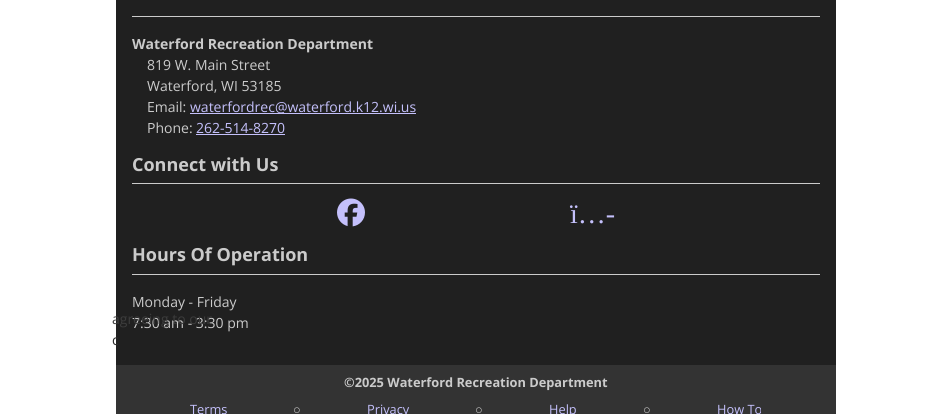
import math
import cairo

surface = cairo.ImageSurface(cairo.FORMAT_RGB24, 952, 414)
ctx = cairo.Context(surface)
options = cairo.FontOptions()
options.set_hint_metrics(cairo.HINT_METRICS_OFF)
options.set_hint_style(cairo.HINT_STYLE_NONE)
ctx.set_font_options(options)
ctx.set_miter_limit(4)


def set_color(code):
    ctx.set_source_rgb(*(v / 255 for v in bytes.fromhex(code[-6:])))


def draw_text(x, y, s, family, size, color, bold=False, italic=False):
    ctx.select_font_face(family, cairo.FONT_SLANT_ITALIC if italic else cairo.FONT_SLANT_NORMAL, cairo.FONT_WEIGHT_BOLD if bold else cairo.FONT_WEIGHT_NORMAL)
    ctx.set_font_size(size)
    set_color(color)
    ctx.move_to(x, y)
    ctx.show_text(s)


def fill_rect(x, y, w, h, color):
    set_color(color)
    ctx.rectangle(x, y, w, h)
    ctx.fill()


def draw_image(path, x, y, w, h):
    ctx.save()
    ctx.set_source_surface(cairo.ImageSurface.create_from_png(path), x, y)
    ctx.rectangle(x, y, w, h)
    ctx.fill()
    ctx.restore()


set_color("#ffffff")
ctx.paint()
fill_rect(116, 0, 720, 365, "#202020")
fill_rect(132, 16, 688, 1, "#cbcbcb")
draw_text(132, 49, "Waterford Recreation Department", "Open Sans", 14, "#cbcbcb", bold=True)
draw_text(147, 70, "819 W. Main Street", "Open Sans", 14, "#cbcbcb")
draw_text(147, 91, "Waterford, WI 53185", "Open Sans", 14, "#cbcbcb")
draw_text(147, 112, "Email:", "Open Sans", 14, "#cbcbcb")
fill_rect(190, 113, 226, 1, "#c4c0fb")
draw_text(190, 112, "waterfordrec@waterford.k12.wi.us", "Open Sans", 14, "#c4c0fb")
draw_text(147, 133, "Phone:", "Open Sans", 14, "#cbcbcb")
draw_text(196, 133, "262-514-8270", "Open Sans", 14, "#c4c0fb")
fill_rect(196, 134, 89, 1, "#c4c0fb")
fill_rect(132, 183, 688, 1, "#cbcbcb")
draw_text(132, 171, "Connect with Us", "Open Sans", 18, "#cbcbcb", bold=True)
draw_image("assets/img1.png", 337, 198, 28, 29)
draw_text(570, 223, "ï…-", "Liberation Serif", 28, "#c4c0fb")
fill_rect(132, 274, 688, 1, "#cbcbcb")
draw_text(132, 261, "Hours Of Operation", "Open Sans", 18, "#cbcbcb", bold=True)
draw_text(132, 307, "Monday - Friday", "Open Sans", 14, "#cbcbcb")
draw_text(132, 328, "7:30 am - 3:30 pm", "Open Sans", 14, "#cbcbcb")
fill_rect(116, 365, 720, 49, "#333333")
draw_text(344, 387, "©2025 Waterford Recreation Department", "Open Sans", 12.8, "#cbcbcb", bold=True)
draw_text(190, 414, "Terms", "Open Sans", 12.8, "#c4c0fb")
draw_text(293, 414, "○", "Liberation Serif", 12.8, "#cbcbcb")
draw_text(367, 414, "Privacy", "Open Sans", 12.8, "#c4c0fb")
draw_text(475, 414, "○", "Liberation Serif", 12.8, "#cbcbcb")
draw_text(549, 414, "Help", "Open Sans", 12.8, "#c4c0fb")
draw_text(643, 414, "○", "Liberation Serif", 12.8, "#cbcbcb")
draw_text(717, 414, "How To", "Open Sans", 12.8, "#c4c0fb")
draw_text(112, 324, "agreeing to our", "Open Sans", 14, "#3c3c3c")
draw_text(112, 345, "c", "Open Sans", 14, "#2a2a2a")
surface.write_to_png("output.png")
